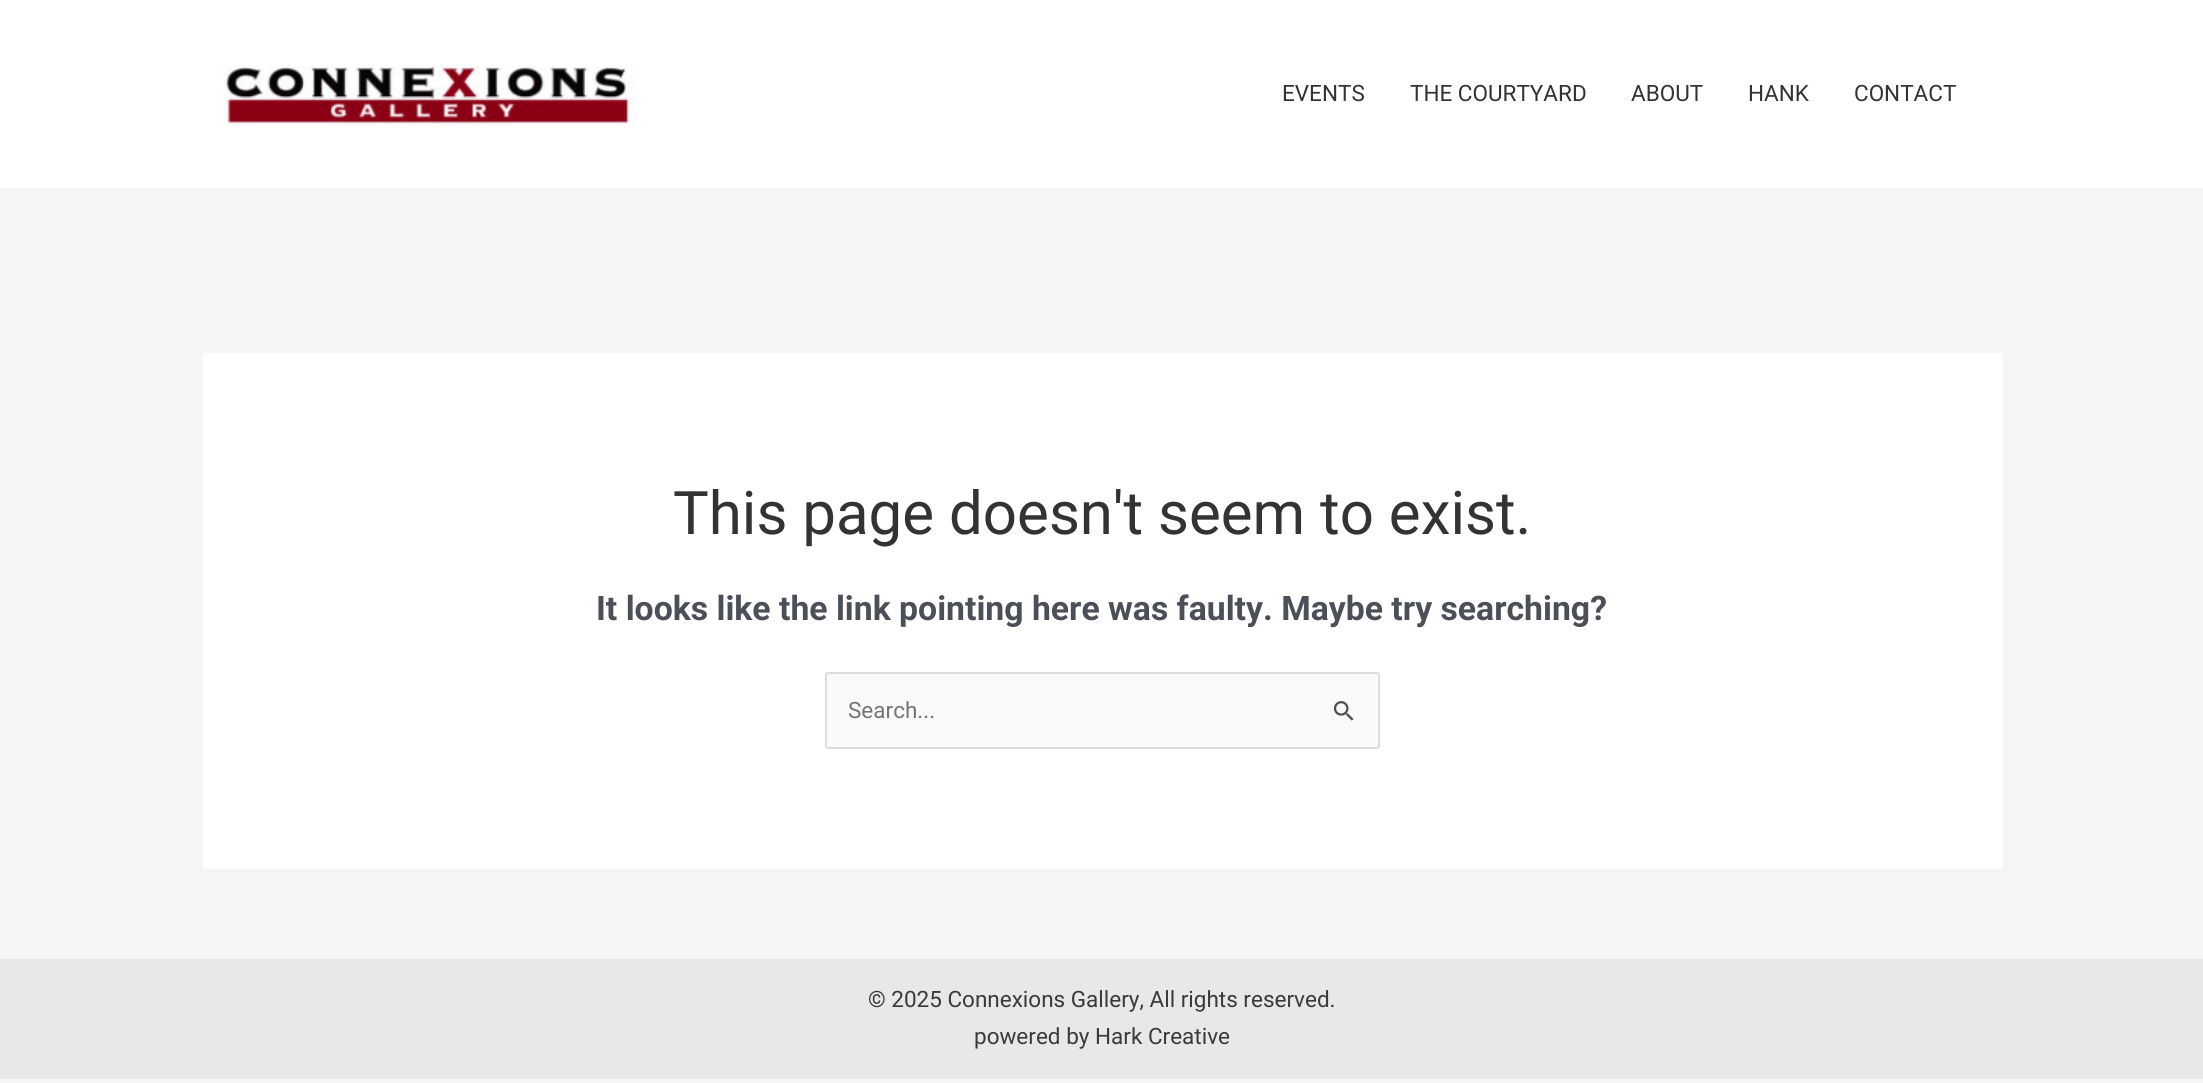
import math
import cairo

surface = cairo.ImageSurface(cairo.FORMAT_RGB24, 2203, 1083)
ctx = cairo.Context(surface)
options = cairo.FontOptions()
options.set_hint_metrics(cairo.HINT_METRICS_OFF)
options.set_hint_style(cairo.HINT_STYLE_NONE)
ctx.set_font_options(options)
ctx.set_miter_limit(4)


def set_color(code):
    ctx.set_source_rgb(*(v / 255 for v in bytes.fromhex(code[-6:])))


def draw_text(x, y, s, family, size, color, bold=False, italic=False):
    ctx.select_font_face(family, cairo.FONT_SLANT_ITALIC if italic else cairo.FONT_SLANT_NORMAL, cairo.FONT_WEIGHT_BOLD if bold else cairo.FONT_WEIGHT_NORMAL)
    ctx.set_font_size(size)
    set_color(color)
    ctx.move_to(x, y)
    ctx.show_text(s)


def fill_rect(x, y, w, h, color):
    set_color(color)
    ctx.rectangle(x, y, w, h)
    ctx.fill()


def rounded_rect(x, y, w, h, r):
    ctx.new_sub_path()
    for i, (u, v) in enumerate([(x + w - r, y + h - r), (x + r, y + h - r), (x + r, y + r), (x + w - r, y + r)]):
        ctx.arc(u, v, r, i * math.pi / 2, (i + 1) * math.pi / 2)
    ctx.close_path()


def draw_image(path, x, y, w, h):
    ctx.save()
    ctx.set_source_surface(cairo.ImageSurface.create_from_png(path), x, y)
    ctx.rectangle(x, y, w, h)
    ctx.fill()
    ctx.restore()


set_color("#f5f5f5")
ctx.paint()
fill_rect(0, 0, 2203, 188, "#ffffff")
draw_image("assets/img1.png", 223, 65, 412, 62)
draw_text(1282, 101, "EVENTS", "Roboto", 22.5, "#333333")
draw_text(1410, 101, "THE COURTYARD", "Roboto", 22.5, "#333333")
draw_text(1631, 101, "ABOUT", "Roboto", 22.5, "#333333")
draw_text(1748, 101, "HANK", "Roboto", 22.5, "#333333")
draw_text(1854, 101, "CONTACT", "Roboto", 22.5, "#333333")
fill_rect(203, 353, 1800, 516, "#ffffff")
draw_text(673, 534, "This page doesn't seem to exist.", "Roboto", 60, "#333333")
draw_text(596, 620, "It looks like the link pointing here was faulty. Maybe try searching?", "Roboto", 33.75, "#4b4f58", bold=True)
set_color("#fafafa")
rounded_rect(826, 673, 553, 75, 2)
ctx.fill_preserve()
set_color("#dddddd")
ctx.stroke()
draw_text(848, 718, "Search...", "Roboto", 22.5, "#757575")
draw_image("assets/img2.png", 1333, 701, 21, 20)
fill_rect(0, 959, 2203, 120, "#e8e8e8")
draw_text(868, 1007, "© 2025 Connexions Gallery, All rights reserved.", "Roboto", 22.5, "#3a3a3a")
draw_text(974, 1044, "powered by Hark Creative", "Roboto", 22.5, "#3a3a3a")
surface.write_to_png("output.png")
